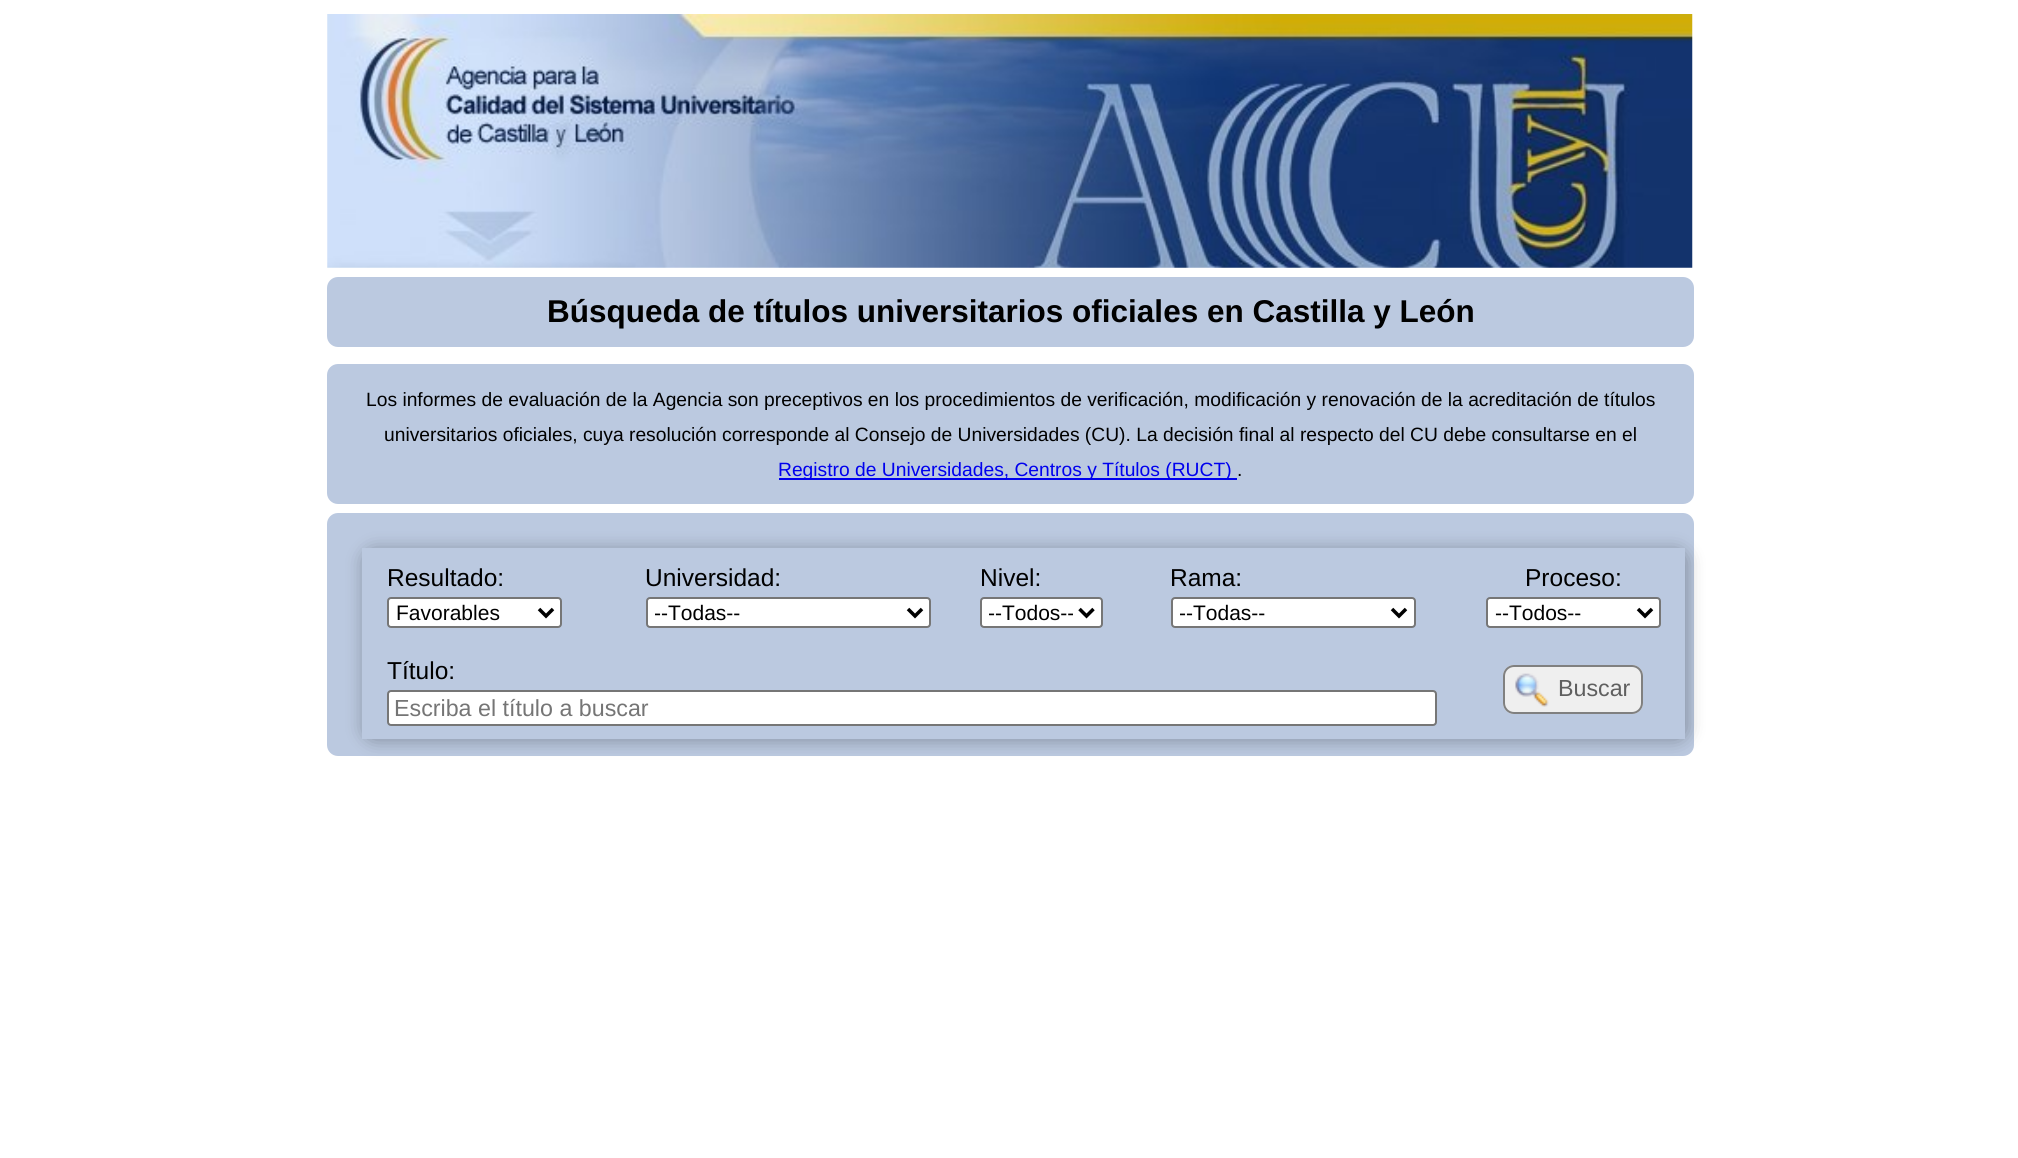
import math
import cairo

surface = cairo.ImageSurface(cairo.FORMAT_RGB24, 2018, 1158)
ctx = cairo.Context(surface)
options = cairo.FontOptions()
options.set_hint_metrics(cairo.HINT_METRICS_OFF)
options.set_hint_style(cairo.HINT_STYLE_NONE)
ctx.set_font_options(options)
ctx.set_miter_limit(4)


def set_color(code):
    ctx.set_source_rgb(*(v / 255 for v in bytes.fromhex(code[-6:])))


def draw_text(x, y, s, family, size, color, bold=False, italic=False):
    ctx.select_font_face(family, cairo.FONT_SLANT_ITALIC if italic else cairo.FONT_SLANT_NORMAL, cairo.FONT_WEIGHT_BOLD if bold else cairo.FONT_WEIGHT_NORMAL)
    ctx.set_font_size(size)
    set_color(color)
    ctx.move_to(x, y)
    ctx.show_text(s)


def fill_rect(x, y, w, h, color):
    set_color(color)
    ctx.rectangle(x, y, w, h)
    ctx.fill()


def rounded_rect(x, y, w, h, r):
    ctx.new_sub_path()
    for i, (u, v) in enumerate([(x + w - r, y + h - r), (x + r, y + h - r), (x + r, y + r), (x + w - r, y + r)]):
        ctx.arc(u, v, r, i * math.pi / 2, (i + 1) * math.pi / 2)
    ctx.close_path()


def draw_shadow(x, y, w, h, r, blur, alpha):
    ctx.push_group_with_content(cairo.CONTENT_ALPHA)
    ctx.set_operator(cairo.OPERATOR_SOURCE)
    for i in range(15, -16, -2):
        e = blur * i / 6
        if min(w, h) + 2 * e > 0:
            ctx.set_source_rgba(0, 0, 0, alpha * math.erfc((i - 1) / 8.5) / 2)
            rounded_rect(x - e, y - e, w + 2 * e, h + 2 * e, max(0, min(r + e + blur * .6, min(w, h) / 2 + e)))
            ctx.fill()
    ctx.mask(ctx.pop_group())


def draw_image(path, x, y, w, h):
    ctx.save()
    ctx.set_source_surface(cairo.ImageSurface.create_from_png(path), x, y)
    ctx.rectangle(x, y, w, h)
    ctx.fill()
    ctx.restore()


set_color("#ffffff")
ctx.paint()
draw_image("assets/img1.png", 327, 14, 1366, 254)
set_color("#bbc9e0")
rounded_rect(327, 277, 1367, 70, 11)
ctx.fill()
draw_text(547, 322, "Búsqueda de títulos universitarios oficiales en Castilla y León", "Liberation Sans", 31.5, "#000000", bold=True)
set_color("#bbc9e0")
rounded_rect(327, 364, 1367, 140, 11)
ctx.fill()
draw_text(366, 406, "Los informes de evaluación de la Agencia son preceptivos en los procedimientos de verificación, modificación y renovación de la acreditación de títulos", "Liberation Sans", 19.25, "#000000")
draw_text(384, 441, "universitarios oficiales, cuya resolución corresponde al Consejo de Universidades (CU). La decisión final al respecto del CU debe consultarse en el", "Liberation Sans", 19.25, "#000000")
fill_rect(779, 478, 458, 2, "#0000ee")
draw_text(778, 476, "Registro de Universidades, Centros y Títulos (RUCT)", "Liberation Sans", 19.25, "#0000ee")
draw_text(1237, 476, ".", "Liberation Sans", 19.25, "#000000")
set_color("#bbc9e0")
rounded_rect(327, 513, 1367, 243, 11)
ctx.fill()
set_color("#000000")
draw_shadow(364, 550, 1323, 190, 11, 9, 0.3)
fill_rect(362, 548, 1323, 93, "#bbc9e0")
draw_text(387, 586, "Resultado:", "Liberation Sans", 24.5, "#000000")
set_color("#ffffff")
rounded_rect(388, 598, 173, 29, 3)
ctx.fill_preserve()
set_color("#767676")
ctx.stroke()
ctx.new_path()
ctx.move_to(539, 609)
ctx.line_to(546, 616)
ctx.line_to(553, 609)
set_color("#000000")
ctx.set_line_width(3.5)
ctx.stroke()
draw_text(396, 620, "Favorables", "Liberation Sans", 21, "#000000")
draw_text(645, 586, "Universidad:", "Liberation Sans", 24.5, "#000000")
set_color("#ffffff")
rounded_rect(647, 598, 283, 29, 3)
ctx.fill_preserve()
set_color("#767676")
ctx.set_line_width(2)
ctx.stroke()
ctx.new_path()
ctx.move_to(908, 609)
ctx.line_to(915, 616)
ctx.line_to(922, 609)
set_color("#000000")
ctx.set_line_width(3.5)
ctx.stroke()
ctx.save()
ctx.rectangle(655, 599, 246, 28)
ctx.clip()
draw_text(654, 620, "--Todas--", "Liberation Sans", 21, "#000000")
ctx.restore()
draw_text(980, 586, "Nivel:", "Liberation Sans", 24.5, "#000000")
set_color("#ffffff")
rounded_rect(981, 598, 121, 29, 3)
ctx.fill_preserve()
set_color("#767676")
ctx.set_line_width(2)
ctx.stroke()
ctx.new_path()
ctx.move_to(1079.5, 609)
ctx.line_to(1086.5, 616)
ctx.line_to(1093.5, 609)
set_color("#000000")
ctx.set_line_width(3.5)
ctx.stroke()
ctx.save()
ctx.rectangle(989, 599, 84, 28)
ctx.clip()
draw_text(988, 620, "--Todos--", "Liberation Sans", 21, "#000000")
ctx.restore()
draw_text(1170, 586, "Rama:", "Liberation Sans", 24.5, "#000000")
set_color("#ffffff")
rounded_rect(1172, 598, 243, 29, 3)
ctx.fill_preserve()
set_color("#767676")
ctx.set_line_width(2)
ctx.stroke()
ctx.new_path()
ctx.move_to(1392, 609)
ctx.line_to(1399, 616)
ctx.line_to(1406, 609)
set_color("#000000")
ctx.set_line_width(3.5)
ctx.stroke()
ctx.save()
ctx.rectangle(1180, 599, 206, 28)
ctx.clip()
draw_text(1179, 620, "--Todas--", "Liberation Sans", 21, "#000000")
ctx.restore()
draw_text(1525, 586, "Proceso:", "Liberation Sans", 24.5, "#000000")
set_color("#ffffff")
rounded_rect(1487, 598, 173, 29, 3)
ctx.fill_preserve()
set_color("#767676")
ctx.set_line_width(2)
ctx.stroke()
ctx.new_path()
ctx.move_to(1638, 609)
ctx.line_to(1645, 616)
ctx.line_to(1652, 609)
set_color("#000000")
ctx.set_line_width(3.5)
ctx.stroke()
draw_text(1495, 620, "--Todos--", "Liberation Sans", 21, "#000000")
fill_rect(362, 641, 1323, 98, "#bbc9e0")
draw_text(387, 679, "Título:", "Liberation Sans", 24.5, "#000000")
set_color("#ffffff")
rounded_rect(388, 691, 1048, 34, 3)
ctx.fill_preserve()
set_color("#767676")
ctx.set_line_width(2)
ctx.stroke()
draw_text(394, 716, "Escriba el título a buscar", "Liberation Sans", 23.25, "#757575")
set_color("#efefef")
rounded_rect(1503, 665, 140, 49, 11)
ctx.fill()
draw_image("assets/img2.png", 1515, 673, 34, 34)
rounded_rect(1504, 666, 138, 47, 10)
set_color("#808080")
ctx.stroke()
draw_text(1558, 696, "Buscar", "Liberation Sans", 23.25, "#5f5f5f")
surface.write_to_png("output.png")
